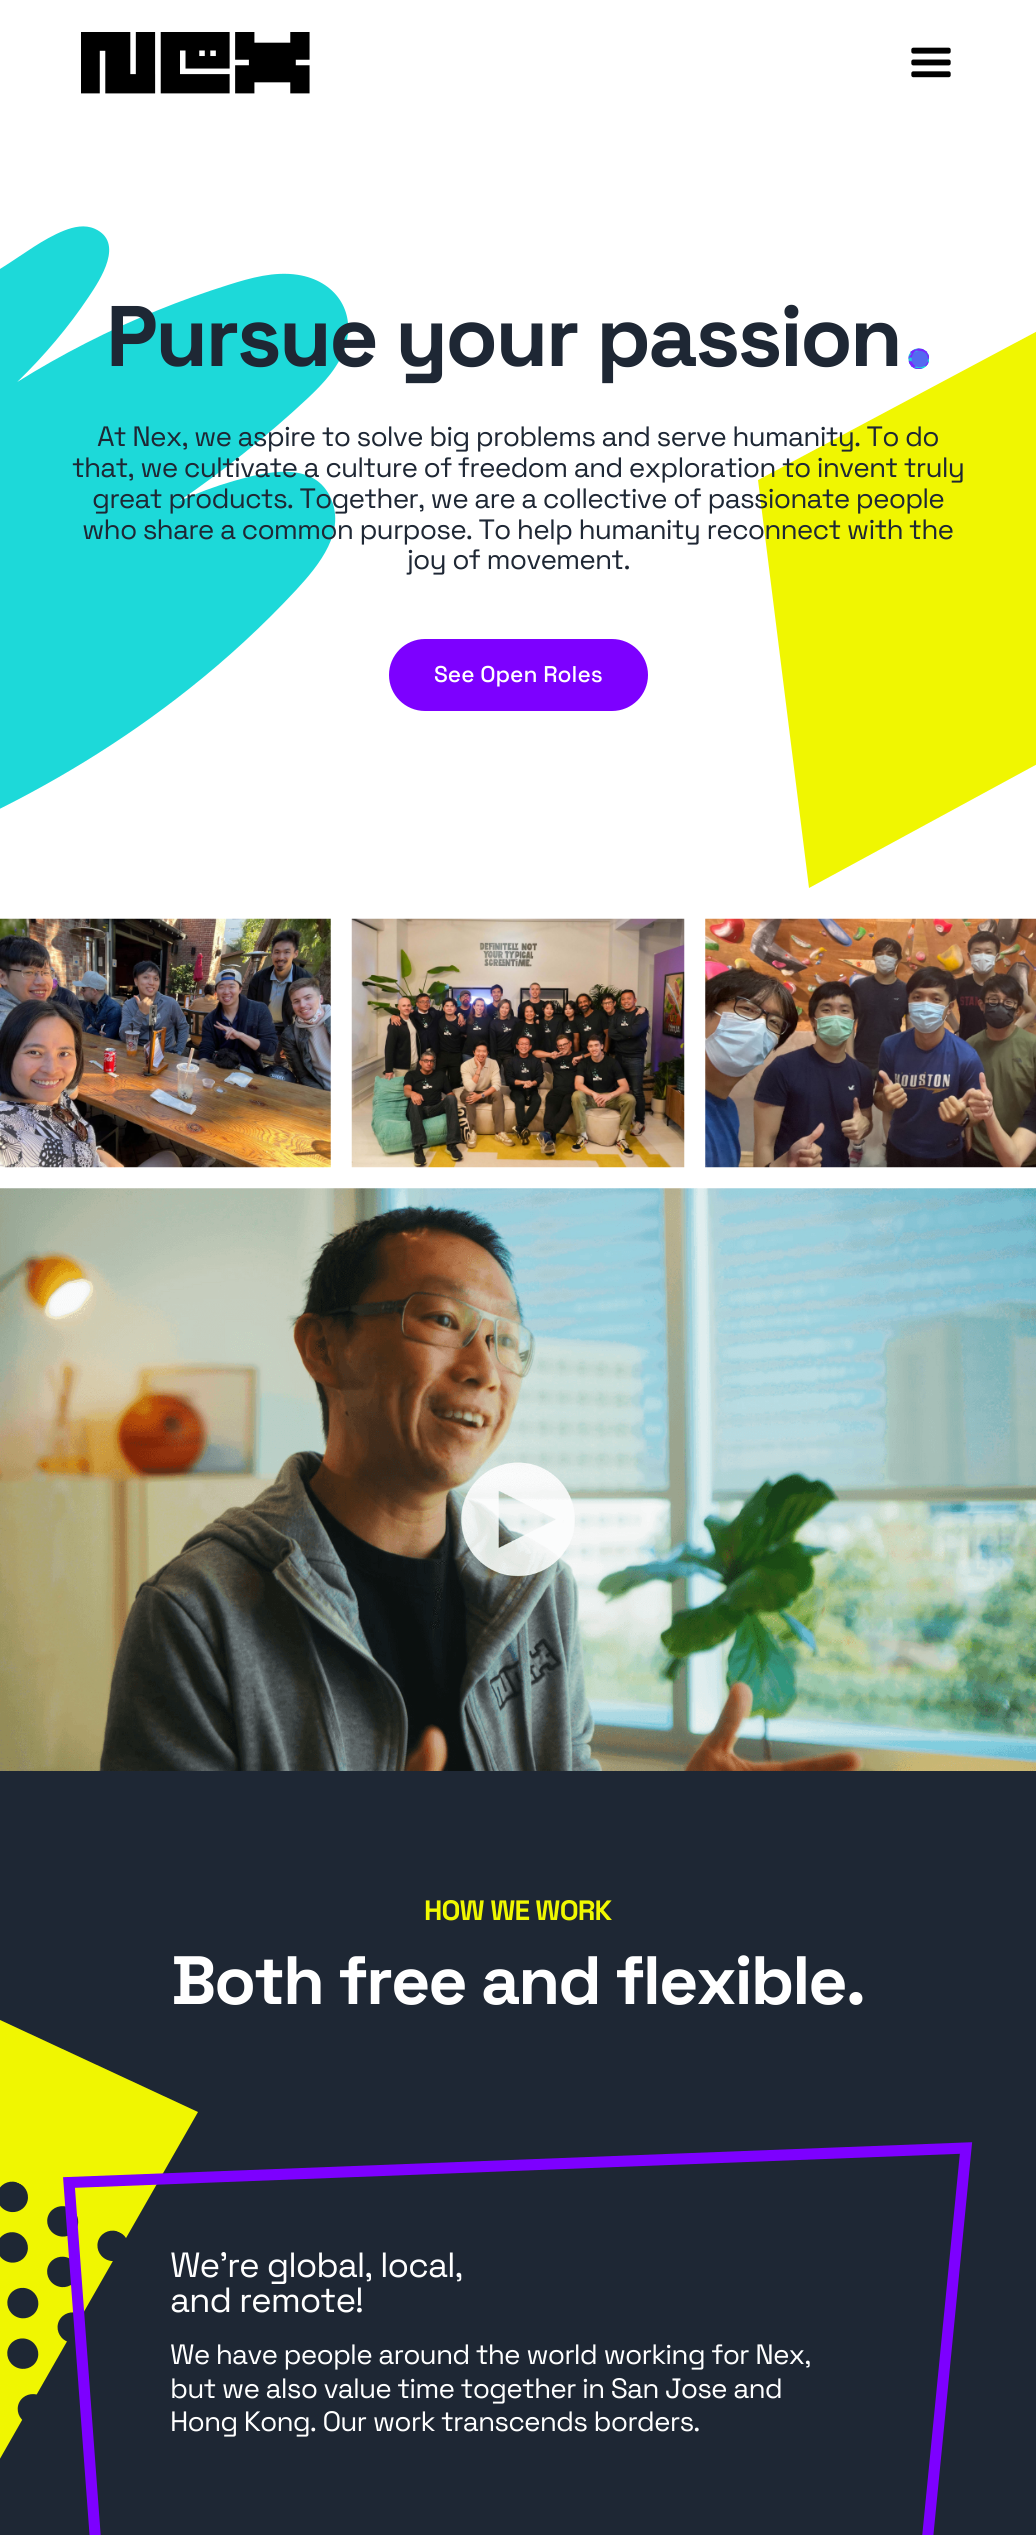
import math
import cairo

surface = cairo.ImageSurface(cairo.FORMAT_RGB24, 1036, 2535)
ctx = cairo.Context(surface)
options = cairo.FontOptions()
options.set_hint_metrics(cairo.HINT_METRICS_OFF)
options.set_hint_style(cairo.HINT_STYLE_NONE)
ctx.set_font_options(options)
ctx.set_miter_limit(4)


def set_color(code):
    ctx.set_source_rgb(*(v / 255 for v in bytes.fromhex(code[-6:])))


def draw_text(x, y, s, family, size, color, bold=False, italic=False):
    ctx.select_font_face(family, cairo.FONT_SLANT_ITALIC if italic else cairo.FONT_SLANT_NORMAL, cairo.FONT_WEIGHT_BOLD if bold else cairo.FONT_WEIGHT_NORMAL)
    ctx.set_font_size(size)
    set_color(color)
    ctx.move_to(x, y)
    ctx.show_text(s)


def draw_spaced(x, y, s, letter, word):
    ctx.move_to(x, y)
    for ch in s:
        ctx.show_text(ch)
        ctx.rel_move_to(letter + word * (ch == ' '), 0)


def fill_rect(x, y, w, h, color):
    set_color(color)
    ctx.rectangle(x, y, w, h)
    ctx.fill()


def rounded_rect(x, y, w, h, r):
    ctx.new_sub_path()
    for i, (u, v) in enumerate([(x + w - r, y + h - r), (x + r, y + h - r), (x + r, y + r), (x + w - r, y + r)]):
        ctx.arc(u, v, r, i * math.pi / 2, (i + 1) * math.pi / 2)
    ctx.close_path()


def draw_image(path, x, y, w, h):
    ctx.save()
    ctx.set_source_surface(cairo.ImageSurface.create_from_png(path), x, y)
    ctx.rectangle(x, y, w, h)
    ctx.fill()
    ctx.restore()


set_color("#ffffff")
ctx.paint()
draw_image("assets/img1.png", 81, 32, 229, 62)
draw_image("assets/img2.png", 911, 47, 40, 31)
draw_image("assets/img3.png", 0, 226, 348, 583)
set_color("#f0f601")
ctx.set_fill_rule(cairo.FILL_RULE_EVEN_ODD)
ctx.new_path()
ctx.move_to(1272, 206)
ctx.line_to(758, 480)
ctx.line_to(809, 888)
ctx.line_to(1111, 724)
ctx.line_to(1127, 851)
ctx.line_to(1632, 576)
ctx.line_to(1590, 168)
ctx.line_to(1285, 331)
ctx.close_path()
ctx.fill()
ctx.select_font_face("Space Grotesk", cairo.FONT_SLANT_NORMAL, cairo.FONT_WEIGHT_BOLD)
ctx.set_font_size(85.75)
set_color("#1e2734")
draw_spaced(106, 366, "Pursue your passion", -2.6, 0)
draw_image("assets/img4.png", 908, 348, 21, 21)
set_color("#5569f0")
draw_spaced(907, 366, ".", -2.6, 0)
ctx.select_font_face("Space Grotesk")
ctx.set_font_size(28)
set_color("#1e2734")
draw_spaced(97, 446, "At Nex, we aspire to solve big problems and serve humanity. To do", -0.85, 0)
draw_spaced(72, 477, "that, we cultivate a culture of freedom and exploration to invent truly", -0.85, 0)
draw_spaced(92, 508, "great products. Together, we are a collective of passionate people", -0.85, 0)
draw_spaced(82, 539, "who share a common purpose. To help humanity reconnect with the", -0.85, 0)
draw_spaced(407, 569, "joy of movement.", -0.85, 0)
set_color("#7d00ff")
rounded_rect(391, 641, 255, 68, 34)
ctx.fill_preserve()
ctx.set_line_width(4)
ctx.stroke()
draw_text(434, 682, "See Open Roles", "Space Grotesk Medium", 22.75, "#ffffff")
draw_image("assets/img5.png", 0, 918, 331, 250)
draw_image("assets/img6.png", 351, 918, 334, 250)
draw_image("assets/img7.png", 705, 918, 331, 250)
draw_image("assets/img8.png", 0, 1188, 1036, 583)
fill_rect(0, 1771, 1036, 764, "#1e2734")
set_color("#f0f601")
ctx.new_path()
ctx.move_to(-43, 2534)
ctx.line_to(198, 2112)
ctx.line_to(-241, 1908)
ctx.line_to(-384, 2166)
ctx.line_to(-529, 2098)
ctx.line_to(-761, 2517)
ctx.line_to(-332, 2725)
ctx.line_to(-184, 2466)
ctx.close_path()
ctx.fill()
draw_image("assets/img9.png", 0, 2181, 126, 239)
ctx.select_font_face("Space Grotesk", cairo.FONT_SLANT_NORMAL, cairo.FONT_WEIGHT_BOLD)
ctx.set_font_size(28)
set_color("#f0f801")
draw_spaced(424, 1920, "HOW WE WORK", -0.85, 0)
ctx.set_font_size(68.25)
set_color("#ffffff")
draw_spaced(171, 2004, "Both free and flexible.", -2.05, 0)
ctx.new_path()
ctx.move_to(107.5, 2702.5)
ctx.line_to(69, 2182.5)
ctx.line_to(966, 2148)
ctx.line_to(909.5, 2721)
ctx.close_path()
set_color("#7d00ff")
ctx.set_line_width(11.1)
ctx.stroke()
ctx.select_font_face("Space Grotesk")
ctx.set_font_size(35)
set_color("#ffffff")
draw_spaced(170, 2277, "We’re global, local,", -1.05, 0)
draw_spaced(170, 2312, "and remote!", -1.05, 0)
ctx.set_font_size(28)
draw_spaced(170, 2364, "We have people around the world working for Nex,", -0.85, 0)
draw_spaced(170, 2398, "but we also value time together in San Jose and", -0.85, 0)
draw_spaced(170, 2431, "Hong Kong. Our work transcends borders.", -0.85, 0)
surface.write_to_png("output.png")
